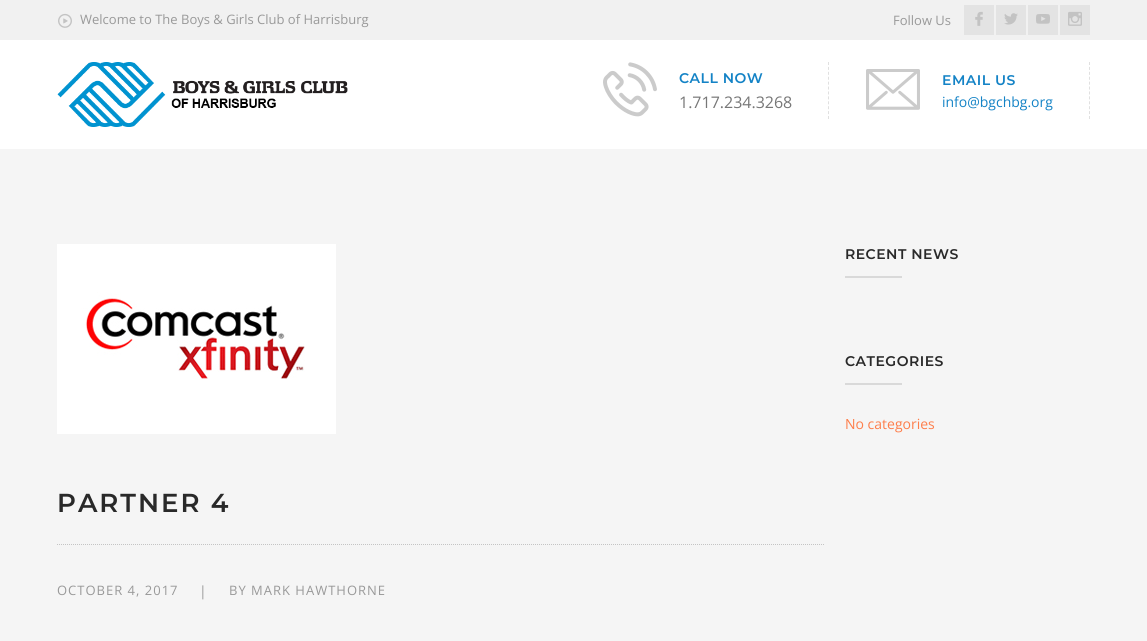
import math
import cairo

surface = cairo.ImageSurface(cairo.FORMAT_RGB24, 1147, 641)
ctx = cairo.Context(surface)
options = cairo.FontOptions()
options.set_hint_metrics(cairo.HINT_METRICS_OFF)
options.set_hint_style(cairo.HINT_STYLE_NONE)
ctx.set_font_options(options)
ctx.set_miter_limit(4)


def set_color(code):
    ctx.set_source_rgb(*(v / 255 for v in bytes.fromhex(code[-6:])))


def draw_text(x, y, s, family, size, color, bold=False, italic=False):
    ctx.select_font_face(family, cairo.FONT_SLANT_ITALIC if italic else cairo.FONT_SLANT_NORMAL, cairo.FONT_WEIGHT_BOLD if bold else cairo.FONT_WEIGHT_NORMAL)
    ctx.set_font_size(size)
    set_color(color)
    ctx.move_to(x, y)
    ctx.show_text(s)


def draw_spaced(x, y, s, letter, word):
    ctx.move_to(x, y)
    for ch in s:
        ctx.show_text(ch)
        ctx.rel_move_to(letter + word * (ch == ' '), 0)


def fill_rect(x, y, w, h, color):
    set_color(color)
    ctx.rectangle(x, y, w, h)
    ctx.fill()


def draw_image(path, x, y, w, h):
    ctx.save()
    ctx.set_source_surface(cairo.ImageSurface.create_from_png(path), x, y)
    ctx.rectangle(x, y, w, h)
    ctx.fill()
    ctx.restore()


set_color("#ffffff")
ctx.paint()
fill_rect(0, 0, 1147, 40, "#f1f1f1")
draw_image("assets/img1.png", 58, 13, 14, 15)
draw_text(80, 24, "Welcome to The Boys & Girls Club of Harrisburg", "Open Sans", 13, "#999999")
draw_text(893, 25, "Follow Us", "Open Sans", 13, "#999999")
fill_rect(964, 5, 30, 30, "#e3e3e3")
draw_image("assets/img2.png", 975, 11, 8, 15)
fill_rect(996, 5, 30, 30, "#e3e3e3")
draw_image("assets/img3.png", 1004, 13, 14, 12)
fill_rect(1028, 5, 30, 30, "#e3e3e3")
draw_image("assets/img4.png", 1036, 14, 14, 10)
fill_rect(1060, 5, 30, 30, "#e3e3e3")
draw_image("assets/img5.png", 1068, 11, 14, 15)
draw_image("assets/img6.png", 57, 62, 291, 65)
ctx.new_path()
ctx.move_to(828.5, 62)
ctx.line_to(828.5, 119)
set_color("#e0e0e0")
ctx.set_line_width(1)
ctx.set_dash([3, 1.91])
ctx.stroke()
draw_image("assets/img7.png", 603, 62, 54, 55)
ctx.select_font_face("Montserrat SemiBold")
ctx.set_font_size(14)
set_color("#1483c6")
draw_spaced(679, 83, "CALL NOW", 0.5, 0)
draw_text(679, 108, "1.717.234.3268", "Open Sans", 16, "#777777")
ctx.new_path()
ctx.move_to(1089.5, 62)
ctx.line_to(1089.5, 119)
set_color("#e0e0e0")
ctx.stroke()
draw_image("assets/img8.png", 866, 69, 54, 41)
ctx.select_font_face("Montserrat SemiBold")
ctx.set_font_size(14)
set_color("#1483c6")
draw_spaced(942, 85, "EMAIL US", 0.5, 0)
draw_text(942, 107, "info@bgchbg.org", "Open Sans", 14, "#1483c6")
fill_rect(0, 149, 1147, 492, "#f5f5f5")
ctx.select_font_face("Montserrat SemiBold")
set_color("#292929")
draw_spaced(845, 259, "RECENT NEWS", 0.5, 0)
fill_rect(845, 276, 57, 2, "#d9d9d9")
set_color("#292929")
draw_spaced(845, 366, "CATEGORIES", 0.5, 0)
fill_rect(845, 383, 57, 2, "#d9d9d9")
draw_text(845, 429, "No categories", "Open Sans", 14, "#fe7e4b")
draw_image("assets/img9.png", 57, 244, 279, 190)
ctx.new_path()
ctx.move_to(57, 544.5)
ctx.line_to(824, 544.5)
set_color("#c4c4c4")
ctx.set_dash([1, 1])
ctx.stroke()
ctx.select_font_face("Montserrat SemiBold")
ctx.set_font_size(26)
set_color("#292929")
draw_spaced(57, 512, "PARTNER 4", 2, 0)
ctx.select_font_face("Open Sans")
ctx.set_font_size(13)
set_color("#999999")
draw_spaced(57, 595, "OCTOBER 4, 2017", 1, 0)
ctx.set_font_size(14)
draw_spaced(199, 596, "|", 1, 0)
ctx.set_font_size(13)
draw_spaced(229, 595, "BY MARK HAWTHORNE", 1, 0)
surface.write_to_png("output.png")
